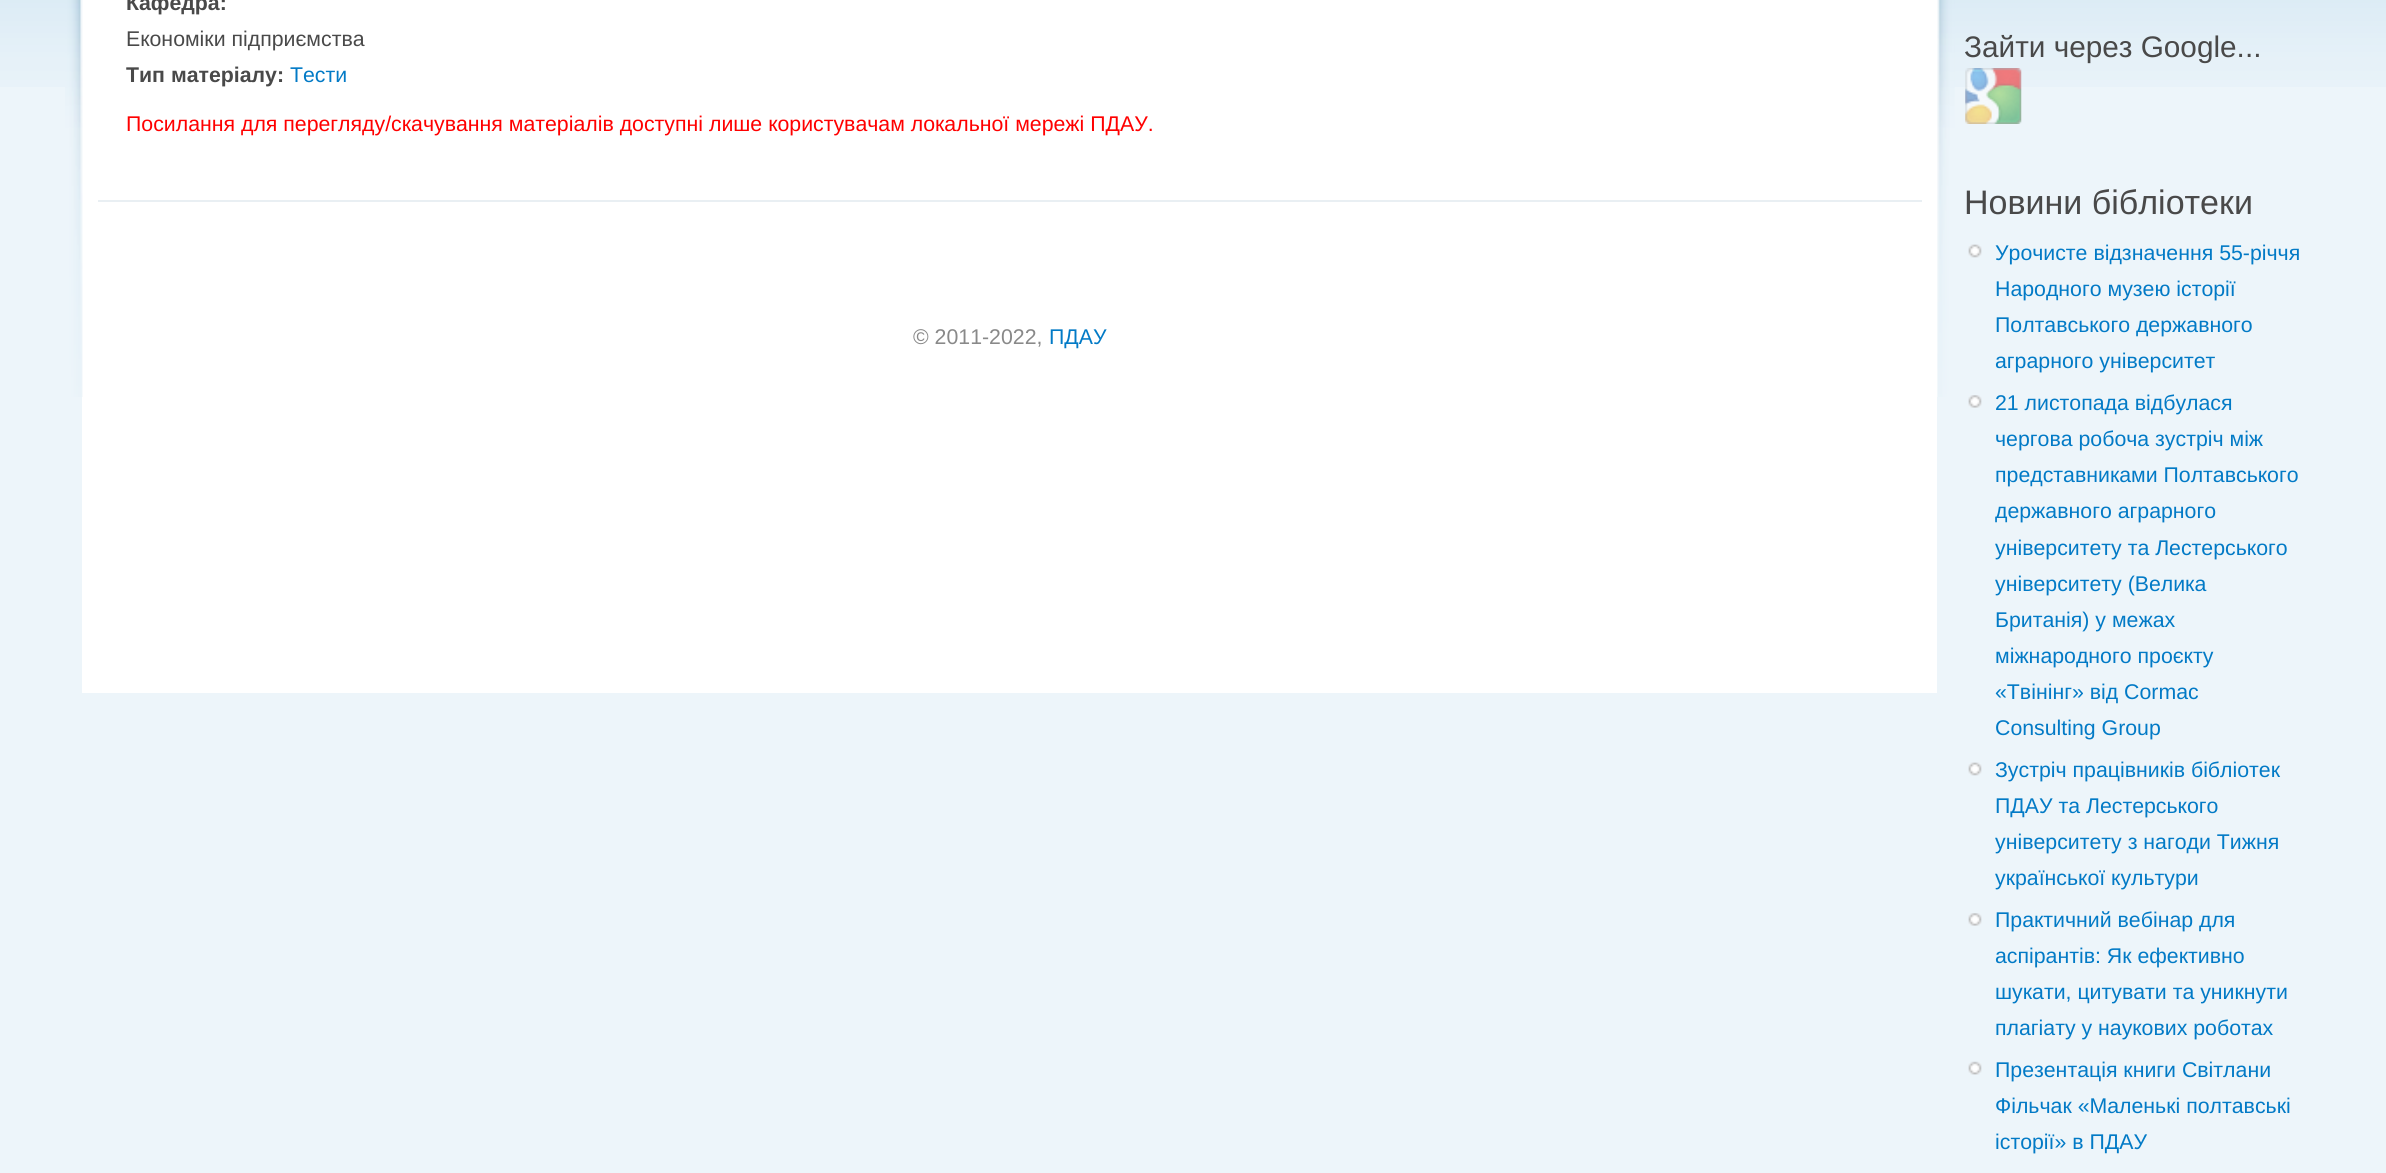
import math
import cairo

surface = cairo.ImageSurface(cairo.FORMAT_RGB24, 2386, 1173)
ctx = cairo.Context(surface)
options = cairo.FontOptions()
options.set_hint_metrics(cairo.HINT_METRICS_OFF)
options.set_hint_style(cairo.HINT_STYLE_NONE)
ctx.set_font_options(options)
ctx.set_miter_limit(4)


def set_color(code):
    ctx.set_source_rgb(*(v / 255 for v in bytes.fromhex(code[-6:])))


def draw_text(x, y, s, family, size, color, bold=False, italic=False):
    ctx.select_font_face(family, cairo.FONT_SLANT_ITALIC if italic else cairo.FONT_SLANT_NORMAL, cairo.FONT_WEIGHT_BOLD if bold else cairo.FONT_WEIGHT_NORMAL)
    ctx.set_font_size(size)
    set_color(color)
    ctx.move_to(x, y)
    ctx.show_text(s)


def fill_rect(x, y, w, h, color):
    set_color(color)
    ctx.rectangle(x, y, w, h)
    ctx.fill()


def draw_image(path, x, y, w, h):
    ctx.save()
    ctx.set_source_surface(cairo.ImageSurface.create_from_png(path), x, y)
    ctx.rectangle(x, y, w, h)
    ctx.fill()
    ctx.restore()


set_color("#edf5fa")
ctx.paint()
draw_image("assets/img1.png", 0, 0, 2386, 87)
fill_rect(82, 0, 1855, 693, "#ffffff")
draw_image("assets/img2.png", 1937, 0, 18, 397)
draw_image("assets/img3.png", 65, 0, 18, 397)
fill_rect(98, 200, 1824, 2, "#e9eff3")
draw_text(126, 10, "Кафедра:", "Liberation Sans", 21.3, "#494949", bold=True)
draw_text(126, 46, "Економіки підприємства", "Liberation Sans", 21.3, "#494949")
draw_text(126, 82, "Тип матеріалу:", "Liberation Sans", 21.3, "#494949", bold=True)
draw_text(290, 82, "Тести", "Liberation Sans", 21.3, "#027ac6")
draw_text(126, 131, "Посилання для перегляду/скачування матеріалів доступні лише користувачам локальної мережі ПДАУ.", "Liberation Sans", 21.3, "#ff0000")
draw_text(913, 344, "© 2011-2022,", "Liberation Sans", 21.3, "#898989")
draw_text(1049, 344, "ПДАУ", "Liberation Sans", 21.3, "#027ac6")
draw_text(1964, 57, "Зайти через Google...", "Liberation Sans", 29.75, "#494949")
draw_image("assets/img4.png", 1965, 68, 57, 56)
draw_text(1964, 214, "Новини бібліотеки", "Liberation Sans", 34, "#494949")
draw_image("assets/img5.png", 1968, 244, 14, 14)
draw_text(1995, 260, "Урочисте відзначення 55-річчя", "Liberation Sans", 21.3, "#027ac6")
draw_text(1995, 296, "Народного музею історії", "Liberation Sans", 21.3, "#027ac6")
draw_text(1995, 332, "Полтавського державного", "Liberation Sans", 21.3, "#027ac6")
draw_text(1995, 368, "аграрного університет", "Liberation Sans", 21.3, "#027ac6")
draw_image("assets/img6.png", 1968, 395, 14, 13)
draw_text(1995, 410, "21 листопада відбулася", "Liberation Sans", 21.3, "#027ac6")
draw_text(1995, 446, "чергова робоча зустріч між", "Liberation Sans", 21.3, "#027ac6")
draw_text(1995, 482, "представниками Полтавського", "Liberation Sans", 21.3, "#027ac6")
draw_text(1995, 518, "державного аграрного", "Liberation Sans", 21.3, "#027ac6")
draw_text(1995, 555, "університету та Лестерського", "Liberation Sans", 21.3, "#027ac6")
draw_text(1995, 591, "університету (Велика", "Liberation Sans", 21.3, "#027ac6")
draw_text(1995, 627, "Британія) у межах", "Liberation Sans", 21.3, "#027ac6")
draw_text(1995, 663, "міжнародного проєкту", "Liberation Sans", 21.3, "#027ac6")
draw_text(1995, 699, "«Твінінг» від Cormac", "Liberation Sans", 21.3, "#027ac6")
draw_text(1995, 735, "Consulting Group", "Liberation Sans", 21.3, "#027ac6")
draw_image("assets/img5.png", 1968, 762, 14, 14)
draw_text(1995, 777, "Зустріч працівників бібліотек", "Liberation Sans", 21.3, "#027ac6")
draw_text(1995, 813, "ПДАУ та Лестерського", "Liberation Sans", 21.3, "#027ac6")
draw_text(1995, 849, "університету з нагоди Тижня", "Liberation Sans", 21.3, "#027ac6")
draw_text(1995, 885, "української культури", "Liberation Sans", 21.3, "#027ac6")
draw_image("assets/img6.png", 1968, 913, 14, 13)
draw_text(1995, 927, "Практичний вебінар для", "Liberation Sans", 21.3, "#027ac6")
draw_text(1995, 963, "аспірантів: Як ефективно", "Liberation Sans", 21.3, "#027ac6")
draw_text(1995, 999, "шукати, цитувати та уникнути", "Liberation Sans", 21.3, "#027ac6")
draw_text(1995, 1035, "плагіату у наукових роботах", "Liberation Sans", 21.3, "#027ac6")
draw_image("assets/img7.png", 1968, 1061, 14, 14)
draw_text(1995, 1077, "Презентація книги Світлани", "Liberation Sans", 21.3, "#027ac6")
draw_text(1995, 1113, "Фільчак «Маленькі полтавські", "Liberation Sans", 21.3, "#027ac6")
draw_text(1995, 1149, "історії» в ПДАУ", "Liberation Sans", 21.3, "#027ac6")
surface.write_to_png("output.png")
